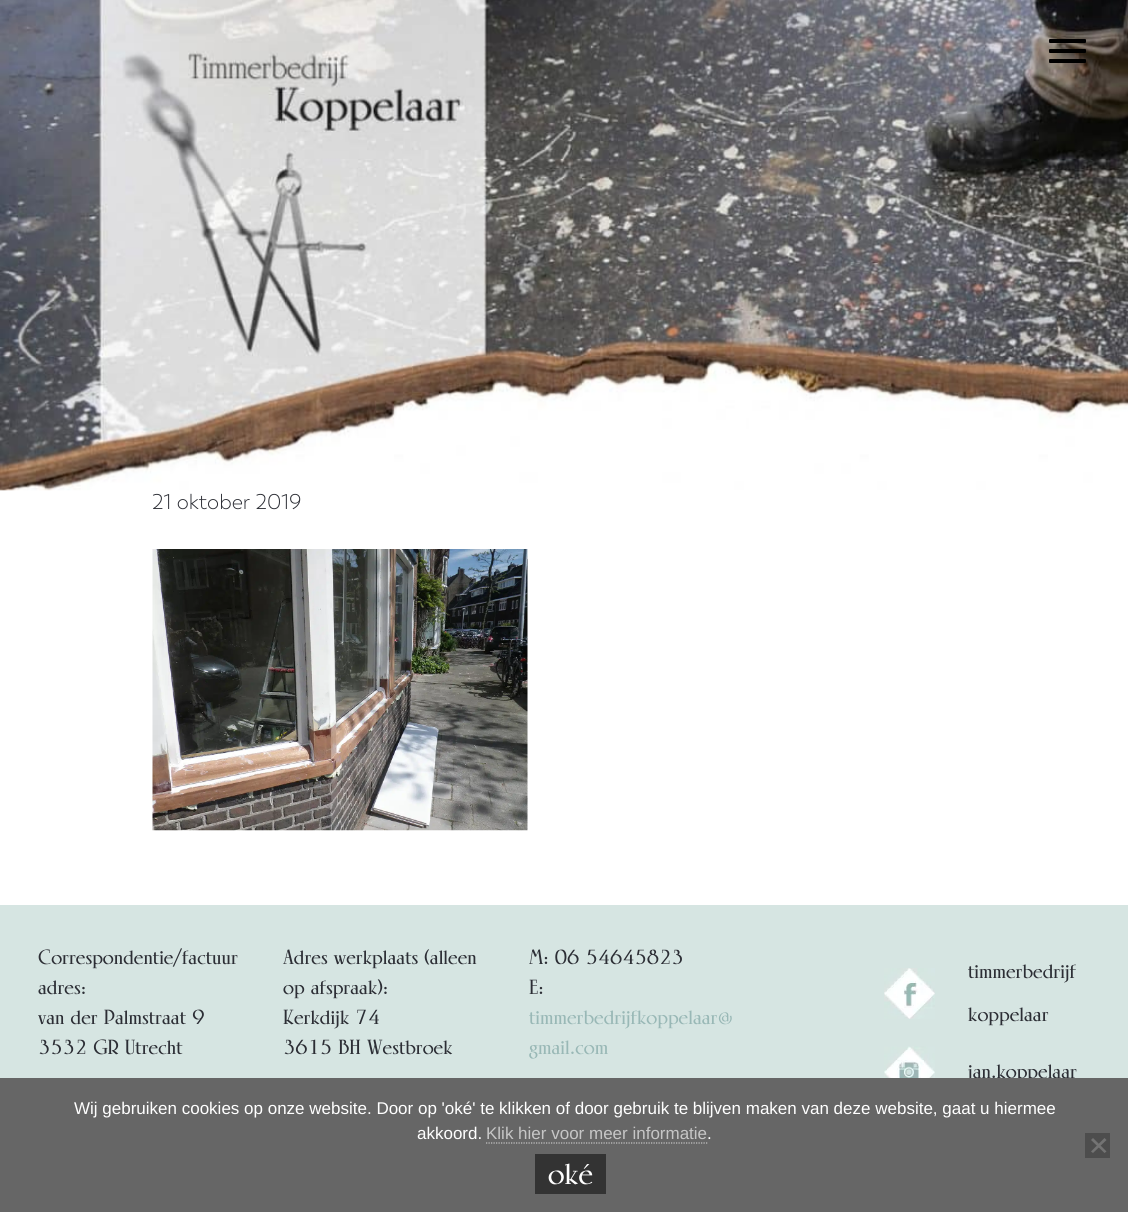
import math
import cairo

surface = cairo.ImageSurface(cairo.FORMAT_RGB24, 1128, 1212)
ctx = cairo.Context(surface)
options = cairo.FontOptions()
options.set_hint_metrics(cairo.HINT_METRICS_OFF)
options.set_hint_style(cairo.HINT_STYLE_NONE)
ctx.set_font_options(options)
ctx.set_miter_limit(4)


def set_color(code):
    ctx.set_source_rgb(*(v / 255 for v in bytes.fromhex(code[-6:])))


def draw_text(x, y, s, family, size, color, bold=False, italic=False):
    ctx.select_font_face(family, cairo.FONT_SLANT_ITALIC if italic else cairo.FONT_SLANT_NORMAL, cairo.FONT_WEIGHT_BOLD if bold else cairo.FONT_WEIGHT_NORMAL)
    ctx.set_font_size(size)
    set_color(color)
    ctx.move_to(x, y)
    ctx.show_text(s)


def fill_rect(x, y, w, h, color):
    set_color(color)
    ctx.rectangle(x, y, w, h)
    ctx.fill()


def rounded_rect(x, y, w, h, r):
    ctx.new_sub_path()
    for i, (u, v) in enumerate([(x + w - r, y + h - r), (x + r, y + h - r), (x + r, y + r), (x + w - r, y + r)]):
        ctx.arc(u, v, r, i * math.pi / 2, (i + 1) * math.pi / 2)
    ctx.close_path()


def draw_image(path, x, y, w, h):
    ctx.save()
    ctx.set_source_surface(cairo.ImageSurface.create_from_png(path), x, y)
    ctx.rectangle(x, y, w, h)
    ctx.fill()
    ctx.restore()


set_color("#ffffff")
ctx.paint()
draw_image("assets/img1.png", 0, 0, 1128, 491)
set_color("#000000")
rounded_rect(1049, 39, 37, 4, 1)
ctx.fill()
rounded_rect(1049, 49, 37, 4, 1)
ctx.fill()
rounded_rect(1049, 59, 37, 4, 1)
ctx.fill()
draw_text(152, 509, "21 oktober 2019", "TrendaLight", 21.25, "#2c2e35")
draw_image("assets/img2.png", 152, 549, 376, 282)
fill_rect(0, 905, 1128, 173, "#d6e5e2")
draw_text(38, 964, "Correspondentie/factuur", "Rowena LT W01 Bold", 21.25, "#2c2e35", bold=True)
draw_text(38, 994, "adres:", "Rowena LT W01 Bold", 21.25, "#2c2e35", bold=True)
draw_text(38, 1024, "van der Palmstraat 9", "Rowena LT W01 Bold", 21.25, "#2c2e35", bold=True)
draw_text(38, 1054, "3532 GR Utrecht", "Rowena LT W01 Bold", 21.25, "#2c2e35", bold=True)
draw_text(283, 964, "Adres werkplaats (alleen", "Rowena LT W01 Bold", 21.25, "#2c2e35", bold=True)
draw_text(283, 994, "op afspraak):", "Rowena LT W01 Bold", 21.25, "#2c2e35", bold=True)
draw_text(283, 1024, "Kerkdijk 74", "Rowena LT W01 Bold", 21.25, "#2c2e35", bold=True)
draw_text(283, 1054, "3615 BH Westbroek", "Rowena LT W01 Bold", 21.25, "#2c2e35", bold=True)
draw_text(529, 964, "M: 06 54645823", "Rowena LT W01 Bold", 21.25, "#2c2e35", bold=True)
draw_text(529, 994, "E:", "Rowena LT W01 Bold", 21.25, "#2c2e35", bold=True)
draw_text(529, 1024, "timmerbedrijfkoppelaar@", "Rowena LT W01 Bold", 21.25, "#99b8b6", bold=True)
draw_text(529, 1054, "gmail.com", "Rowena LT W01 Bold", 21.25, "#99b8b6", bold=True)
draw_image("assets/img3.png", 884, 968, 51, 51)
draw_text(968, 978, "timmerbedrijf", "Rowena LT W01 Bold", 21.25, "#2c2e35", bold=True)
draw_text(968, 1021, "koppelaar", "Rowena LT W01 Bold", 21.25, "#2c2e35", bold=True)
draw_image("assets/img4.png", 884, 1046, 51, 32)
draw_text(968, 1078, "jan.koppelaar", "Rowena LT W01 Bold", 21.25, "#2c2e35", bold=True)
fill_rect(0, 1078, 1128, 134, "#666666")
draw_text(74, 1114, "Wij gebruiken cookies op onze website. Door op 'oké' te klikken of door gebruik te blijven maken van deze website, gaat u hiermee", "Liberation Sans", 17, "#ffffff")
draw_text(417, 1139, "akkoord.", "Liberation Sans", 17, "#ffffff")
draw_text(486, 1139, "Klik hier voor meer informatie", "Liberation Sans", 17, "#c6c6c6")
ctx.new_path()
ctx.move_to(486, 1143)
ctx.line_to(707.5, 1143)
ctx.set_line_width(1.2)
ctx.set_dash([1.25, 1.25])
ctx.stroke()
draw_text(707, 1139, ".", "Liberation Sans", 17, "#ffffff")
fill_rect(1085, 1133, 25, 25, "#4d4d4d")
set_color("#737373")
ctx.new_path()
ctx.move_to(1104.5, 1138)
ctx.line_to(1106.5, 1140)
ctx.line_to(1093, 1153)
ctx.line_to(1091, 1151.5)
ctx.close_path()
ctx.fill()
ctx.new_path()
ctx.move_to(1091, 1140)
ctx.line_to(1093, 1138)
ctx.line_to(1106.5, 1151.5)
ctx.line_to(1104.5, 1153)
ctx.close_path()
ctx.fill()
fill_rect(535, 1154, 71, 40, "#333333")
draw_text(548, 1184, "oké", "Rowena LT W01 Bold", 32, "#ffffff", bold=True)
surface.write_to_png("output.png")
